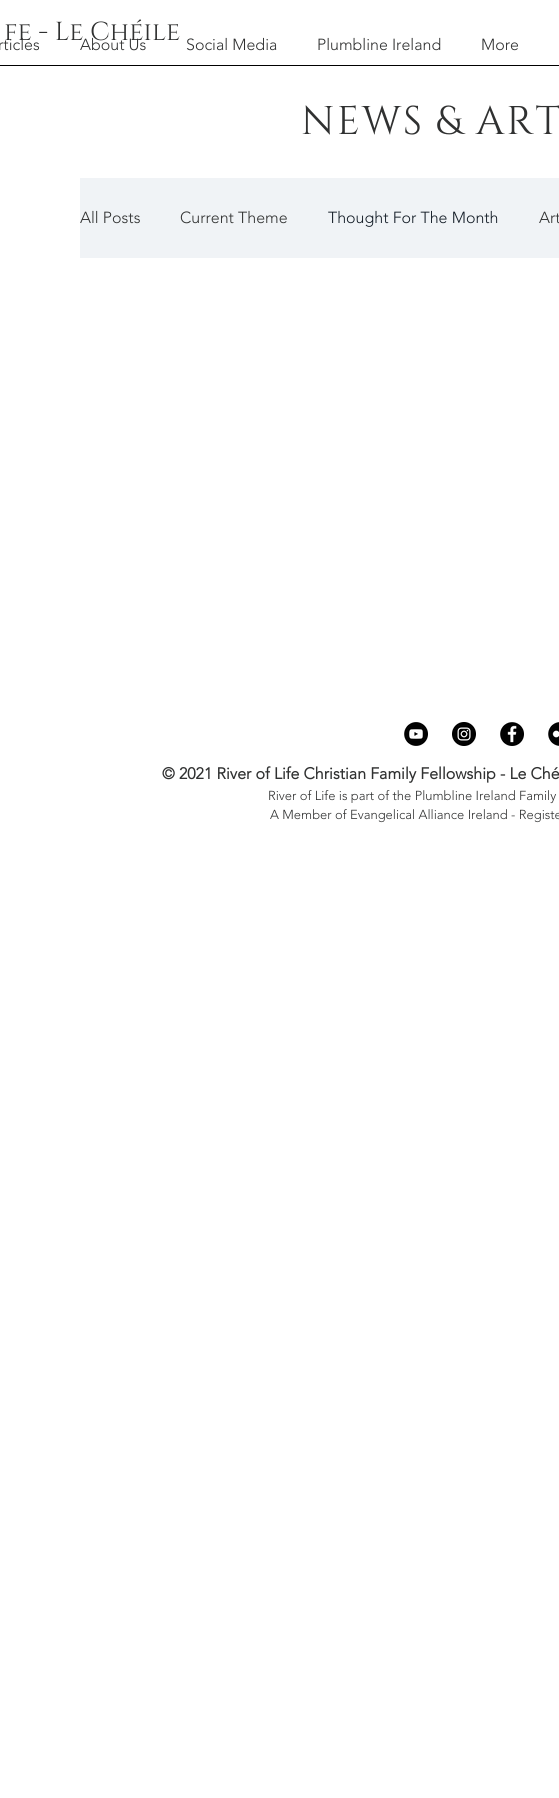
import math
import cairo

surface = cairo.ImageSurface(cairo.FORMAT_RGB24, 559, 1798)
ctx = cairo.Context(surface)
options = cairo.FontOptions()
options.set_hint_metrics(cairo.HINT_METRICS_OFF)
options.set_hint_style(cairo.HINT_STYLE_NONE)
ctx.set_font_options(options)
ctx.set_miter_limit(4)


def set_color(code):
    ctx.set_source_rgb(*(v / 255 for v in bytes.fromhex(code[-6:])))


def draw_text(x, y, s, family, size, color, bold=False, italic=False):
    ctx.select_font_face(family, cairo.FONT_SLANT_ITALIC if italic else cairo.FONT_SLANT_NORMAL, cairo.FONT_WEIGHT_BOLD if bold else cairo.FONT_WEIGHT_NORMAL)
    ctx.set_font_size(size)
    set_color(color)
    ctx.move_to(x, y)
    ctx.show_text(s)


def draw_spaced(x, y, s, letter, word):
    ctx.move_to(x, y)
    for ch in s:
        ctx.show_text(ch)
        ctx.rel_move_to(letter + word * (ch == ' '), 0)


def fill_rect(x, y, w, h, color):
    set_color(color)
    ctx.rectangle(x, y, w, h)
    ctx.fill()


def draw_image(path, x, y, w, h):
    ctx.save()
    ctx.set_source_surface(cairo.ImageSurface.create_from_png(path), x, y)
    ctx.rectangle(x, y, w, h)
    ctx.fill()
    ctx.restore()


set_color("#ffffff")
ctx.paint()
draw_text(4, 40, "fe - Le Chéile", "Cinzel", 26, "#303131")
fill_rect(0, 65, 559, 1, "#000000")
draw_text(-2, 50, "rticles", "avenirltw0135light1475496 Light", 16, "#303131")
draw_text(80, 50, "About Us", "avenirltw0135light1475496 Light", 16, "#303131")
draw_text(186, 50, "Social Media", "avenirltw0135light1475496 Light", 16, "#303131")
draw_text(317, 50, "Plumbline Ireland", "avenirltw0135light1475496 Light", 16, "#303131")
draw_text(481, 50, "More", "avenirltw0135light1475496 Light", 16, "#303131")
ctx.select_font_face("Cinzel")
ctx.set_font_size(40)
draw_spaced(301, 134, "NEWS & ART", 2, 0)
fill_rect(80, 178, 479, 80, "#f0f3f6")
draw_text(80, 223, "All Posts", "avenirltw0135light1475496 Light", 16, "#303131")
draw_text(180, 223, "Current Theme", "avenirltw0135light1475496 Light", 16, "#303131")
draw_text(328, 223, "Thought For The Month", "avenirltw0135light1475496 Light", 16, "#141d27")
draw_text(539, 223, "Art", "avenirltw0135light1475496 Light", 16, "#303131")
draw_image("assets/img1.png", 404, 722, 24, 24)
draw_image("assets/img2.png", 452, 722, 24, 24)
draw_image("assets/img3.png", 500, 722, 24, 24)
draw_image("assets/img4.png", 548, 722, 11, 24)
draw_text(162, 779, "© 2021 River of Life Christian Family Fellowship - Le Ché", "avenirltw0135light1475496", 16, "#303131", bold=True)
draw_text(268, 800, "River of Life is part of the Plumbline Ireland Family", "avenirltw0135light1475496 Light", 13, "#303131")
draw_text(270, 819, "A Member of Evangelical Alliance Ireland - Registe", "avenirltw0135light1475496 Light", 13, "#303131")
surface.write_to_png("output.png")
